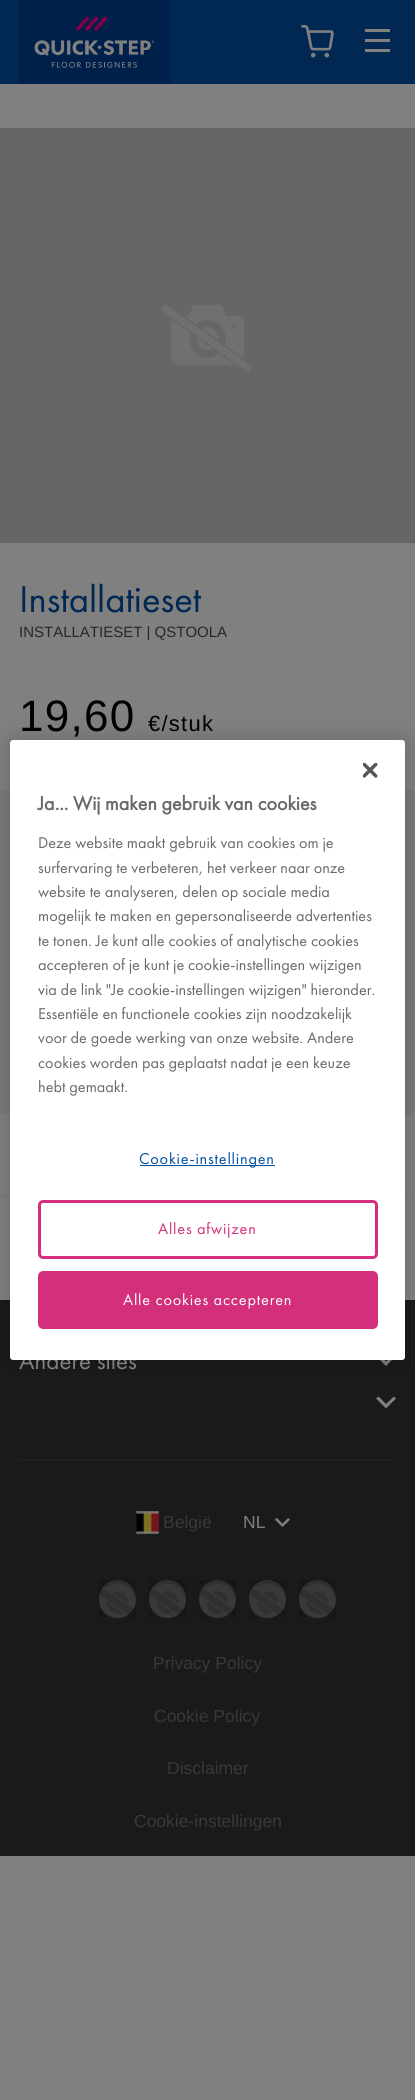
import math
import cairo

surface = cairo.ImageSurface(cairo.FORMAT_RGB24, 415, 2100)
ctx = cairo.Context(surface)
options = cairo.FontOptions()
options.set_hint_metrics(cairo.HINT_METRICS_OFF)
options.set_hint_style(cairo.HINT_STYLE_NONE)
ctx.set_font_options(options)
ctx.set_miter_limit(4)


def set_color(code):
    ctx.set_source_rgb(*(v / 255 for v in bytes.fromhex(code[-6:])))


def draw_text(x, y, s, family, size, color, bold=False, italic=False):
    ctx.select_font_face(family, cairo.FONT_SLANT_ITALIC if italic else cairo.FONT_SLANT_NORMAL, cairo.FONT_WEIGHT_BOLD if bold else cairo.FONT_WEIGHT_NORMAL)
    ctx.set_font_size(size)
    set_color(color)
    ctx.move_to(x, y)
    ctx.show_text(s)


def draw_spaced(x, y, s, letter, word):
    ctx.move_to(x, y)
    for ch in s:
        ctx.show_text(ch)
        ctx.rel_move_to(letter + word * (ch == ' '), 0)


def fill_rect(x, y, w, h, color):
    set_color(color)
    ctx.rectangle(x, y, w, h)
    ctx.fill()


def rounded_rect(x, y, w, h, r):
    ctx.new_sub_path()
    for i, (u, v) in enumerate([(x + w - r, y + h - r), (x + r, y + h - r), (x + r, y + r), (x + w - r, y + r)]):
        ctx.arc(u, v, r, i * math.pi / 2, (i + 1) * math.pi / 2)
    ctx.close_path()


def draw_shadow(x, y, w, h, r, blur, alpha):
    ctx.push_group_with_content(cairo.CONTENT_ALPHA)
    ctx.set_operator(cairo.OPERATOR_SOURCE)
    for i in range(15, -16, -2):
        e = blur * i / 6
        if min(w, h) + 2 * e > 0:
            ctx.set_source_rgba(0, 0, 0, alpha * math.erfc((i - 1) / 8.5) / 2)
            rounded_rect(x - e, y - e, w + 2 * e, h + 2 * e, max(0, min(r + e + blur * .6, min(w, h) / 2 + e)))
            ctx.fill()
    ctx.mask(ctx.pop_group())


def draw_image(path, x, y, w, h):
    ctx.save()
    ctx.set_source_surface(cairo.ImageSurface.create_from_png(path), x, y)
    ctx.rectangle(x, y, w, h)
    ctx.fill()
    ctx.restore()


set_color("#808080")
ctx.paint()
fill_rect(0, 0, 415, 84, "#002852")
draw_image("assets/img1.png", 19, 0, 151, 84)
draw_image("assets/img2.png", 301, 25, 33, 33)
fill_rect(365, 29, 25, 3, "#808080")
fill_rect(365, 39, 25, 3, "#808080")
fill_rect(365, 49, 25, 3, "#808080")
fill_rect(0, 128, 415, 415, "#666666")
draw_image("assets/img3.png", 161, 304, 92, 69)
draw_text(19, 612, "Installatieset", "Futura PT", 38.75, "#002852")
draw_text(19, 637, "INSTALLATIESET | QSTOOLA", "Liberation Sans", 15, "#272727")
ctx.set_font_size(44)
set_color("#000000")
draw_spaced(19, 731, "19,60", 1.25, 0)
ctx.set_font_size(22)
draw_spaced(148, 731, "€/stuk", 1.25, 0)
set_color("#797979")
rounded_rect(0, 790, 415, 325, 5)
ctx.fill()
fill_rect(0, 1196, 415, 1, "#797979")
fill_rect(0, 1300, 415, 556, "#1a1a1a")
set_color("#808080")
ctx.new_path()
ctx.move_to(394, 1354)
ctx.line_to(386, 1361.5)
ctx.line_to(378.5, 1354)
ctx.line_to(376, 1356)
ctx.line_to(386, 1366)
ctx.line_to(396, 1356)
ctx.close_path()
ctx.move_to(394, 1396.5)
ctx.line_to(386, 1404)
ctx.line_to(378.5, 1396.5)
ctx.line_to(376, 1398.5)
ctx.line_to(386, 1408.5)
ctx.line_to(396, 1398.5)
ctx.close_path()
ctx.fill()
set_color("#000000")
draw_shadow(10, 740, 395, 620, 3, 11, 0.2)
draw_text(19, 1369, "Andere sites", "Futura PT", 25, "#808080")
set_color("#ffffff")
rounded_rect(10, 740, 395, 620, 3)
ctx.fill()
draw_image("assets/img4.png", 363, 763, 15, 15)
draw_text(38, 810, "Ja... Wij maken gebruik van cookies", "Futura PT", 20, "#696969", bold=True)
draw_text(38, 848, "Deze website maakt gebruik van cookies om je", "Futura PT", 16.25, "#696969")
draw_text(38, 873, "surfervaring te verbeteren, het verkeer naar onze", "Futura PT", 16.25, "#696969")
draw_text(38, 897, "website te analyseren, delen op sociale media", "Futura PT", 16.25, "#696969")
draw_text(38, 921, "mogelijk te maken en gepersonaliseerde advertenties", "Futura PT", 16.25, "#696969")
draw_text(38, 946, "te tonen. Je kunt alle cookies of analytische cookies", "Futura PT", 16.25, "#696969")
draw_text(38, 970, "accepteren of je kunt je cookie-instellingen wijzigen", "Futura PT", 16.25, "#696969")
draw_text(38, 995, "via de link \"Je cookie-instellingen wijzigen\" hieronder.", "Futura PT", 16.25, "#696969")
draw_text(38, 1019, "Essentiële en functionele cookies zijn noodzakelijk", "Futura PT", 16.25, "#696969")
draw_text(38, 1043, "voor de goede werking van onze website. Andere", "Futura PT", 16.25, "#696969")
draw_text(38, 1068, "cookies worden pas geplaatst nadat je een keuze", "Futura PT", 16.25, "#696969")
draw_text(38, 1092, "hebt gemaakt.", "Futura PT", 16.25, "#696969")
fill_rect(140, 1165, 135, 1, "#004fa3")
draw_spaced(139, 1164, "Cookie-instellingen", 0.8, 0)
rounded_rect(39.5, 1201.5, 337, 56, 3.5)
set_color("#d42f7b")
ctx.set_line_width(3)
ctx.stroke()
draw_spaced(158, 1234, "Alles afwijzen", 0.8, 0)
rounded_rect(39.5, 1272.5, 337, 55, 3.5)
ctx.fill_preserve()
ctx.stroke()
set_color("#ffffff")
draw_spaced(123, 1305, "Alle cookies accepteren", 0.8, 0)
fill_rect(19, 1460, 377, 1, "#242424")
draw_image("assets/img5.png", 136, 1511, 23, 23)
draw_text(163, 1528, "België", "Liberation Sans", 17.5, "#383838")
draw_text(243, 1528, "NL", "Liberation Sans", 17.5, "#808080")
draw_image("assets/img6.png", 275, 1518, 15, 9)
set_color("#393939")
rounded_rect(99, 1580, 37, 38, 18.5)
ctx.fill()
draw_image("assets/img7.png", 99, 1580, 37, 38)
rounded_rect(149, 1580, 37, 38, 18.5)
ctx.fill()
draw_image("assets/img7.png", 149, 1580, 37, 38)
rounded_rect(199, 1580, 37, 38, 18.5)
ctx.fill()
draw_image("assets/img7.png", 199, 1580, 37, 38)
rounded_rect(249, 1580, 37, 38, 18.5)
ctx.fill()
draw_image("assets/img7.png", 249, 1580, 37, 38)
rounded_rect(299, 1580, 37, 38, 18.5)
ctx.fill()
draw_image("assets/img7.png", 299, 1580, 37, 38)
draw_text(153, 1669, "Privacy Policy", "Liberation Sans", 17.5, "#383838")
draw_text(154, 1722, "Cookie Policy", "Liberation Sans", 17.5, "#383838")
draw_text(167, 1774, "Disclaimer", "Liberation Sans", 17.5, "#383838")
draw_text(134, 1827, "Cookie-instellingen", "Liberation Sans", 17.5, "#383838")
surface.write_to_png("output.png")
